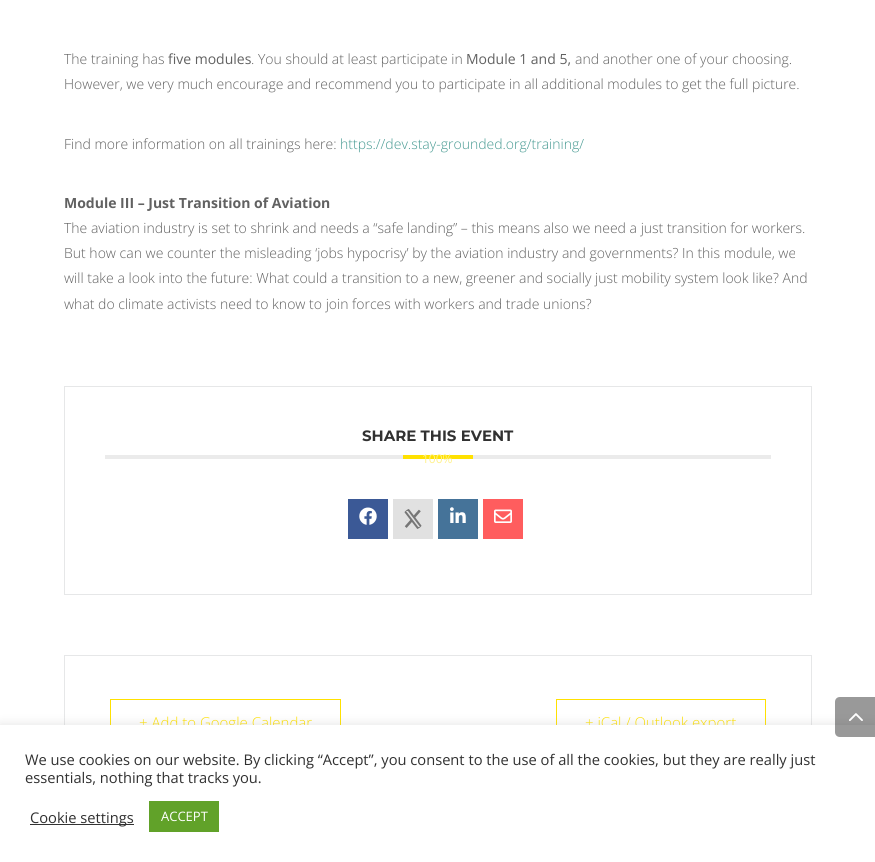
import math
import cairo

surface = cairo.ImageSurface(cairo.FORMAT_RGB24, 875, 862)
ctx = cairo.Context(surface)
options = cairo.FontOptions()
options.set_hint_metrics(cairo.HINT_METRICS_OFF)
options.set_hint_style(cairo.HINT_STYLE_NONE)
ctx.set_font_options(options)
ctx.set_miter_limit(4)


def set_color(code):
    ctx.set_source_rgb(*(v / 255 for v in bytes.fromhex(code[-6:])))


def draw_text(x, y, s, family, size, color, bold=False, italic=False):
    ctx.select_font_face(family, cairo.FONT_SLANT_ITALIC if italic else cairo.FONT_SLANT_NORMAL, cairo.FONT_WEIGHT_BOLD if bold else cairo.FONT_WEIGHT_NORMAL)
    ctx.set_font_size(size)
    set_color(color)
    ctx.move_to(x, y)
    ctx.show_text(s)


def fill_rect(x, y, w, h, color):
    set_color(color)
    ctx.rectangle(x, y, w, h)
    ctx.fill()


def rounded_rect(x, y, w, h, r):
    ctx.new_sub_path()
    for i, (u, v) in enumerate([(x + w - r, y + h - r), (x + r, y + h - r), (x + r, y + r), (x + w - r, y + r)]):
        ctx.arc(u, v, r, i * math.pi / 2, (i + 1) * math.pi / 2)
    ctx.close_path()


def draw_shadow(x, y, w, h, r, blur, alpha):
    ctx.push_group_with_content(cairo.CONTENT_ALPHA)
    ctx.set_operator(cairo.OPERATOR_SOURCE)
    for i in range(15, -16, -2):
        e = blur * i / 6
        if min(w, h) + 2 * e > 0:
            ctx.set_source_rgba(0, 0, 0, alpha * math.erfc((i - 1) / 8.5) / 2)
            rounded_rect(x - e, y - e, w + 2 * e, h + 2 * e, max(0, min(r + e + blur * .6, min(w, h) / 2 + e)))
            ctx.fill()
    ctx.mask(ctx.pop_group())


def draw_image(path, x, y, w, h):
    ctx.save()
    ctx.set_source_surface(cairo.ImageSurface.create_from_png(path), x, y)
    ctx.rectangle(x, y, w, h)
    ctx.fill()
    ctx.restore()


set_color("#ffffff")
ctx.paint()
draw_text(64, 64, "The training has", "Open Sans Light", 14, "#616161")
draw_text(168, 64, "five modules", "Open Sans", 14, "#616161")
draw_text(251, 64, ". You should at least participate in", "Open Sans Light", 14, "#616161")
draw_text(466, 64, "Module 1 and 5,", "Open Sans", 14, "#616161")
draw_text(575, 64, "and another one of your choosing.", "Open Sans Light", 14, "#616161")
draw_text(64, 89, "However, we very much encourage and recommend you to participate in all additional modules to get the full picture.", "Open Sans Light", 14, "#616161")
draw_text(64, 149, "Find more information on all trainings here:", "Open Sans Light", 14, "#616161")
draw_text(340, 149, "https://dev.stay-grounded.org/training/", "Open Sans Light", 14, "#479a92")
draw_text(64, 208, "Module III – Just Transition of Aviation", "Open Sans", 14, "#616161", bold=True)
draw_text(64, 233, "The aviation industry is set to shrink and needs a “safe landing” – this means also we need a just transition for workers.", "Open Sans Light", 14, "#616161")
draw_text(64, 258, "But how can we counter the misleading ‘jobs hypocrisy’ by the aviation industry and governments? In this module, we", "Open Sans Light", 14, "#616161")
draw_text(64, 283, "will take a look into the future: What could a transition to a new, greener and socially just mobility system look like? And", "Open Sans Light", 14, "#616161")
draw_text(64, 309, "what do climate activists need to know to join forces with workers and trade unions?", "Open Sans Light", 14, "#616161")
ctx.rectangle(64.5, 386.5, 747, 208)
set_color("#e6e7e8")
ctx.set_line_width(1)
ctx.stroke()
fill_rect(105, 455, 666, 4, "#ebebeb")
draw_text(362, 441, "SHARE THIS EVENT", "Montserrat", 15, "#313131", bold=True)
fill_rect(403, 455, 70, 4, "#ffe100")
fill_rect(348, 499, 40, 40, "#3b5996")
draw_image("assets/img1.png", 359, 507, 18, 18)
fill_rect(393, 499, 40, 40, "#e1e1e1")
draw_image("assets/img2.png", 404, 509, 18, 20)
fill_rect(438, 499, 40, 40, "#457399")
draw_image("assets/img3.png", 450, 507, 16, 16)
fill_rect(483, 499, 40, 40, "#ff5d5e")
draw_image("assets/img4.png", 494, 509, 18, 14)
ctx.rectangle(64.5, 655.5, 747, 133)
set_color("#e6e7e8")
ctx.stroke()
ctx.rectangle(110.5, 699.5, 230, 45)
set_color("#ffe100")
ctx.stroke()
draw_text(139, 728, "+ Add to Google Calendar", "Open Sans Light", 15, "#ffe100")
ctx.rectangle(556.5, 699.5, 209, 45)
ctx.stroke()
draw_text(585, 728, "+ iCal / Outlook export", "Open Sans Light", 15, "#ffe100")
draw_text(422, 463, "100%", "Open Sans", 12, "#fff18b")
set_color("#acabab")
draw_shadow(0, 724, 875, 137, 0, 5, 0.3)
fill_rect(0, 725, 875, 137, "#ffffff")
ctx.set_source_rgba(0, 0, 0, 0.4)
ctx.new_path()
ctx.move_to(840, 697)
ctx.line_to(875, 697)
ctx.line_to(875, 737)
ctx.line_to(840, 737)
ctx.curve_to(837, 737, 835, 735, 835, 732)
ctx.line_to(835, 702)
ctx.curve_to(835, 699, 837, 697, 840, 697)
ctx.close_path()
ctx.fill()
draw_image("assets/img5.png", 849, 713, 14, 8)
draw_text(25, 765, "We use cookies on our website. By clicking “Accept”, you consent to the use of all the cookies, but they are really just", "Open Sans", 14.67, "#313131")
draw_text(25, 783, "essentials, nothing that tracks you.", "Open Sans", 14.67, "#313131")
fill_rect(30, 824, 104, 1, "#333333")
draw_text(30, 823, "Cookie settings", "Open Sans", 14.67, "#313131")
fill_rect(149, 801, 70, 31, "#61a229")
draw_text(161, 821, "ACCEPT", "Open Sans", 13, "#ffffff")
surface.write_to_png("output.png")
